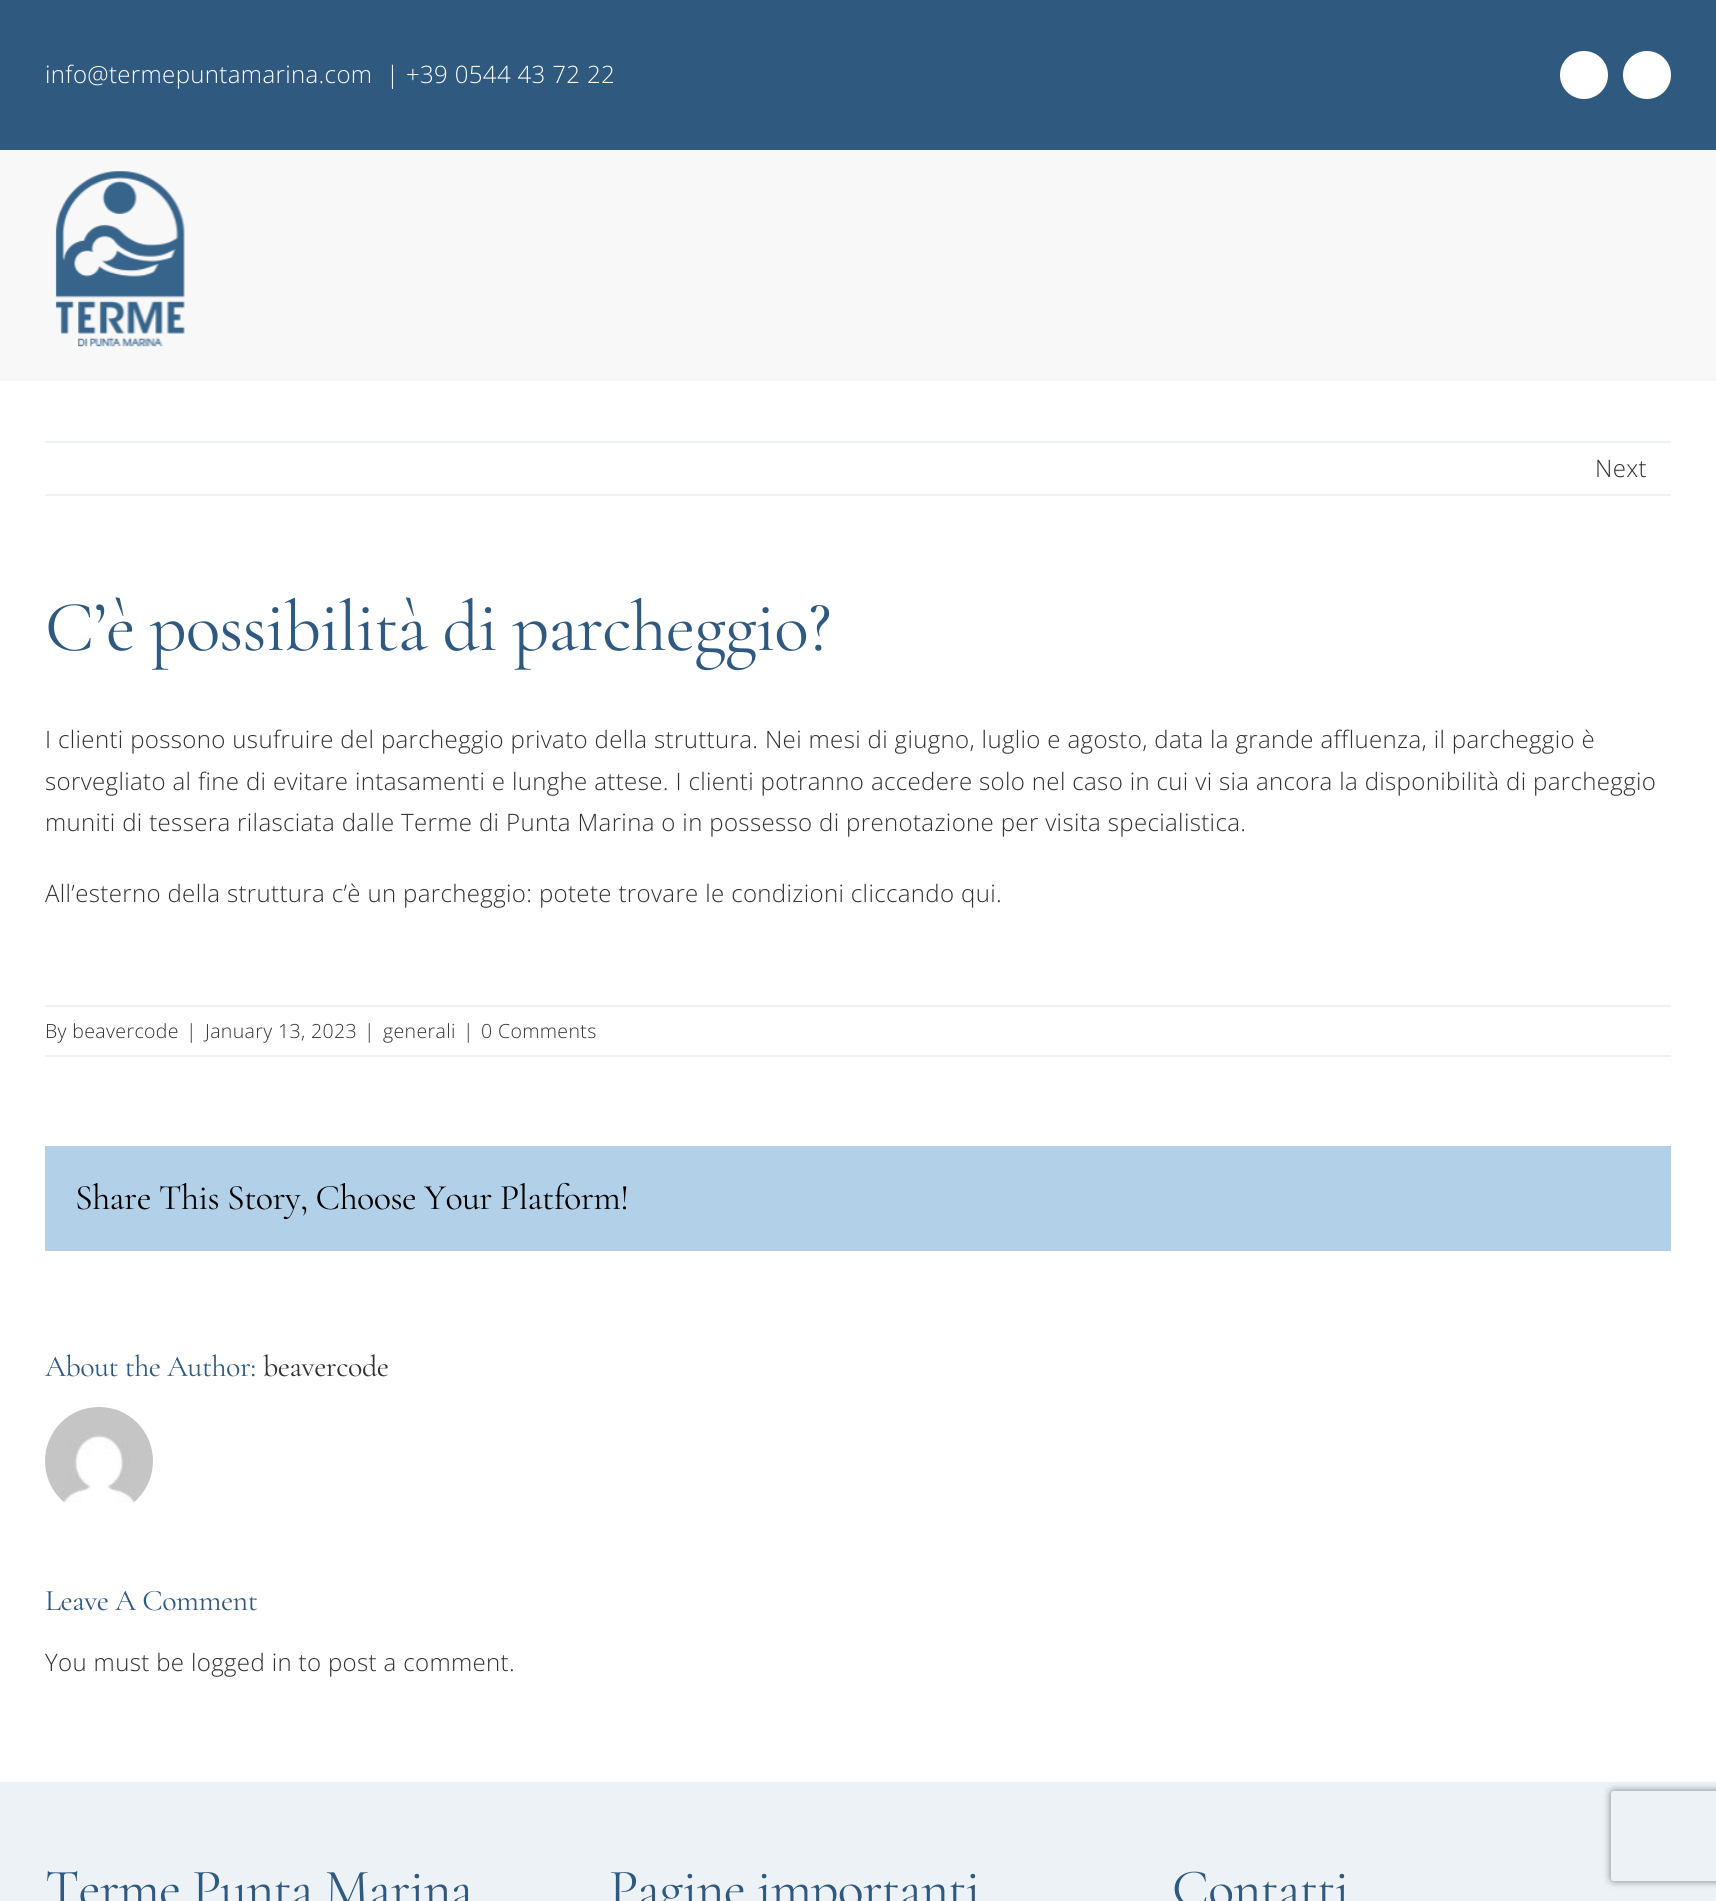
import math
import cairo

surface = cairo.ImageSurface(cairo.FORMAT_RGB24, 1716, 1901)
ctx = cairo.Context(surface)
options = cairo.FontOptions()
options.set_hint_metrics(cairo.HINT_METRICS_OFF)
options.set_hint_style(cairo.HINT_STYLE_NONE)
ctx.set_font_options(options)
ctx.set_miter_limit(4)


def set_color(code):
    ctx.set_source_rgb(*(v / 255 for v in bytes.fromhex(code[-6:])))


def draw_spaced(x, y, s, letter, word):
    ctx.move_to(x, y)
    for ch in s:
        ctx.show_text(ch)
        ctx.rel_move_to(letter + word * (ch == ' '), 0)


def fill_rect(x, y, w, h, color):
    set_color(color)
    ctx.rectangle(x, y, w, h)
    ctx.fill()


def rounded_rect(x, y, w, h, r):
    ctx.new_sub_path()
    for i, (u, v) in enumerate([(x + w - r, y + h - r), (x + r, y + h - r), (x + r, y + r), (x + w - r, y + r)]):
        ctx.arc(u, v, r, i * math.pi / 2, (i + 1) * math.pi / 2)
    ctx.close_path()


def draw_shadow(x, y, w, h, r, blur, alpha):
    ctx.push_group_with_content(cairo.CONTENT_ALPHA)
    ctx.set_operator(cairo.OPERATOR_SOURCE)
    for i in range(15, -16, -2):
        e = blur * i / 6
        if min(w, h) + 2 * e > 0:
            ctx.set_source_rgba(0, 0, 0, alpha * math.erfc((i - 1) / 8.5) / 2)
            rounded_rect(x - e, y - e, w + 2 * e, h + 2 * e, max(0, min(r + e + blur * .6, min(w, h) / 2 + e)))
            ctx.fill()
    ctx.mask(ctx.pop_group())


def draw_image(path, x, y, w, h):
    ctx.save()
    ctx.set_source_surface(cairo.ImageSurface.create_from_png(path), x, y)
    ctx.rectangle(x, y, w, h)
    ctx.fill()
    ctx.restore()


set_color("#ffffff")
ctx.paint()
fill_rect(0, 0, 1716, 150, "#30597f")
ctx.select_font_face("Open Sans Light")
ctx.set_font_size(24)
set_color("#ffffff")
draw_spaced(45, 83, "info@termepuntamarina.com", 0.36, 0)
draw_spaced(386, 83, "| +39 0544 43 72 22", 0.36, 0)
ctx.new_path()
ctx.arc(1584, 75, 24, 0, 2 * math.pi)
ctx.fill()
ctx.arc(1647, 75, 24, 0, 2 * math.pi)
ctx.fill()
fill_rect(0, 150, 1716, 231, "#f8f8f8")
draw_image("assets/img1.png", 55, 171, 130, 176)
fill_rect(45, 441, 1626, 2, "#ecf2f6")
fill_rect(45, 494, 1626, 2, "#ecf2f6")
set_color("#303030")
draw_spaced(1595, 477, "Next", 0.36, 0)
ctx.select_font_face("Cormorant Garamond Light")
ctx.set_font_size(72)
set_color("#30597f")
draw_spaced(45, 650, "C’è possibilità di parcheggio?", -1.1, 0)
ctx.select_font_face("Open Sans Light")
ctx.set_font_size(24)
set_color("#303030")
draw_spaced(45, 748, "I clienti possono usufruire del parcheggio privato della struttura. Nei mesi di giugno, luglio e agosto, data la grande affluenza, il parcheggio è", 0.36, 0)
draw_spaced(45, 790, "sorvegliato al fine di evitare intasamenti e lunghe attese. I clienti potranno accedere solo nel caso in cui vi sia ancora la disponibilità di parcheggio", 0.36, 0)
draw_spaced(45, 831, "muniti di tessera rilasciata dalle Terme di Punta Marina o in possesso di prenotazione per visita specialistica.", 0.36, 0)
draw_spaced(45, 902, "All’esterno della struttura c’è un parcheggio: potete trovare le condizioni cliccando qui.", 0.36, 0)
fill_rect(45, 1005, 1626, 2, "#ecf2f6")
fill_rect(45, 1055, 1626, 2, "#ecf2f6")
ctx.set_font_size(19.5)
set_color("#303030")
draw_spaced(45, 1038, "By beavercode", 0.36, 0)
draw_spaced(186, 1038, "|", 0.36, 0)
draw_spaced(205, 1038, "January 13, 2023", 0.36, 0)
draw_spaced(364, 1038, "|", 0.36, 0)
draw_spaced(383, 1038, "generali", 0.36, 0)
draw_spaced(463, 1038, "|", 0.36, 0)
draw_spaced(481, 1038, "0 Comments", 0.36, 0)
fill_rect(45, 1146, 1626, 105, "#b2d0e8")
ctx.select_font_face("Cormorant Garamond Light")
ctx.set_font_size(36)
set_color("#000000")
draw_spaced(75, 1209, "Share This Story, Choose Your Platform!", -0.55, 0)
ctx.set_font_size(30)
set_color("#30597f")
draw_spaced(45, 1376, "About the Author:", -0.5, 0)
set_color("#303030")
draw_spaced(263, 1376, "beavercode", -0.5, 0)
draw_image("assets/img2.png", 45, 1407, 108, 96)
set_color("#30597f")
draw_spaced(45, 1610, "Leave A Comment", -0.5, 0)
ctx.select_font_face("Open Sans Light")
ctx.set_font_size(24)
set_color("#303030")
draw_spaced(45, 1671, "You must be logged in to post a comment.", 0.36, 0)
fill_rect(0, 1782, 1716, 119, "#ecf2f6")
ctx.select_font_face("Cormorant Garamond Light")
ctx.set_font_size(54)
set_color("#30597f")
draw_spaced(45, 1906, "Terme Punta Marina", -0.8, 0)
draw_spaced(609, 1906, "Pagine importanti", -0.8, 0)
draw_spaced(1172, 1906, "Contatti", -0.8, 0)
ctx.save()
ctx.set_fill_rule(cairo.FILL_RULE_EVEN_ODD)
ctx.new_path()
ctx.move_to(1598, 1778)
ctx.line_to(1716, 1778)
ctx.line_to(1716, 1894)
ctx.line_to(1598, 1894)
ctx.close_path()
ctx.move_to(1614, 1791)
ctx.line_to(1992, 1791)
ctx.curve_to(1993.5, 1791, 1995, 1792.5, 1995, 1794)
ctx.line_to(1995, 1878)
ctx.curve_to(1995, 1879.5, 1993.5, 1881, 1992, 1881)
ctx.line_to(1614, 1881)
ctx.curve_to(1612.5, 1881, 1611, 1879.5, 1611, 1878)
ctx.line_to(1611, 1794)
ctx.curve_to(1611, 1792.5, 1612.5, 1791, 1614, 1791)
ctx.close_path()
ctx.clip()
set_color("#808080")
draw_shadow(1611, 1791, 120, 90, 3, 4, 1)
ctx.restore()
surface.write_to_png("output.png")
